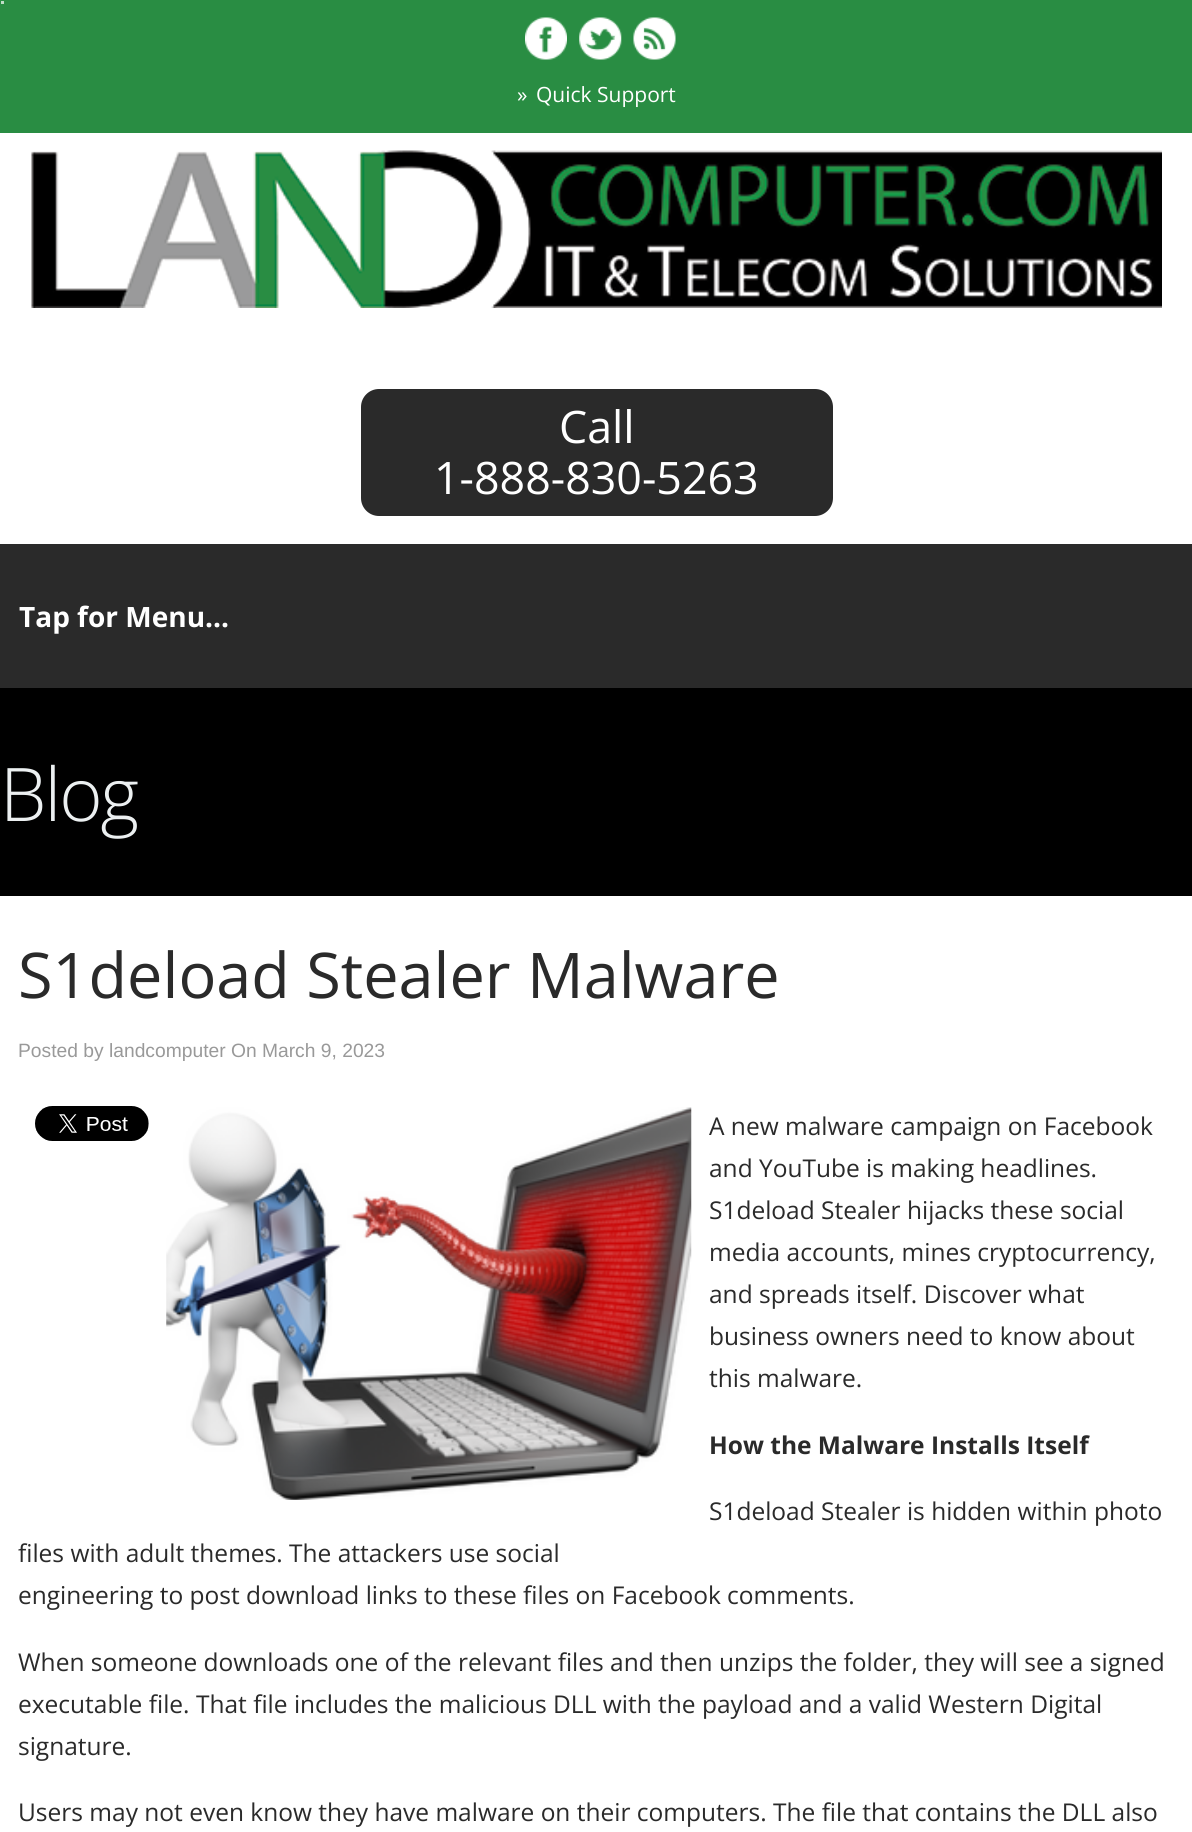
import math
import cairo

surface = cairo.ImageSurface(cairo.FORMAT_RGB24, 1192, 1832)
ctx = cairo.Context(surface)
options = cairo.FontOptions()
options.set_hint_metrics(cairo.HINT_METRICS_OFF)
options.set_hint_style(cairo.HINT_STYLE_NONE)
ctx.set_font_options(options)
ctx.set_miter_limit(4)


def set_color(code):
    ctx.set_source_rgb(*(v / 255 for v in bytes.fromhex(code[-6:])))


def draw_text(x, y, s, family, size, color, bold=False, italic=False):
    ctx.select_font_face(family, cairo.FONT_SLANT_ITALIC if italic else cairo.FONT_SLANT_NORMAL, cairo.FONT_WEIGHT_BOLD if bold else cairo.FONT_WEIGHT_NORMAL)
    ctx.set_font_size(size)
    set_color(color)
    ctx.move_to(x, y)
    ctx.show_text(s)


def draw_spaced(x, y, s, letter, word):
    ctx.move_to(x, y)
    for ch in s:
        ctx.show_text(ch)
        ctx.rel_move_to(letter + word * (ch == ' '), 0)


def fill_rect(x, y, w, h, color):
    set_color(color)
    ctx.rectangle(x, y, w, h)
    ctx.fill()


def rounded_rect(x, y, w, h, r):
    ctx.new_sub_path()
    for i, (u, v) in enumerate([(x + w - r, y + h - r), (x + r, y + h - r), (x + r, y + r), (x + w - r, y + r)]):
        ctx.arc(u, v, r, i * math.pi / 2, (i + 1) * math.pi / 2)
    ctx.close_path()


def draw_image(path, x, y, w, h):
    ctx.save()
    ctx.set_source_surface(cairo.ImageSurface.create_from_png(path), x, y)
    ctx.rectangle(x, y, w, h)
    ctx.fill()
    ctx.restore()


set_color("#ffffff")
ctx.paint()
fill_rect(0, 0, 1192, 133, "#298d43")
fill_rect(1, 1, 3, 3, "#bfddc7")
draw_image("assets/img1.png", 525, 17, 42, 43)
draw_image("assets/img2.png", 579, 17, 43, 43)
draw_image("assets/img3.png", 633, 17, 43, 43)
draw_text(517, 102, "»", "Open Sans", 21, "#ffffff")
draw_text(536, 102, "Quick Support", "Open Sans", 21, "#ffffff")
draw_image("assets/img4.png", 31, 150, 1131, 158)
set_color("#2a2a2a")
rounded_rect(361, 389, 472, 127, 18)
ctx.fill()
draw_text(559, 443, "Call", "Open Sans", 44.75, "#ffffff")
draw_text(434, 494, "1-888-830-5263", "Open Sans", 44.75, "#ffffff")
fill_rect(0, 544, 1192, 144, "#2a2a2a")
draw_text(19, 627, "Tap for Menu...", "Open Sans", 28, "#ffffff", bold=True)
fill_rect(0, 688, 1192, 208, "#000000")
ctx.select_font_face("Open Sans Light")
ctx.set_font_size(74)
set_color("#ecf0f1")
draw_spaced(0, 821, "Blog", -2, 0)
draw_text(18, 998, "S1deload Stealer Malware", "Open Sans", 63, "#2a2a2a")
draw_text(18, 1057, "Posted by landcomputer On March 9, 2023", "Liberation Sans", 19.25, "#999999")
draw_image("assets/img5.png", 35, 1106, 114, 35)
draw_image("assets/img6.png", 166, 1107, 526, 393)
draw_text(709, 1135, "A new malware campaign on Facebook", "Open Sans", 24.5, "#2a2a2a")
draw_text(709, 1177, "and YouTube is making headlines.", "Open Sans", 24.5, "#2a2a2a")
draw_text(709, 1219, "S1deload Stealer hijacks these social", "Open Sans", 24.5, "#2a2a2a")
draw_text(709, 1261, "media accounts, mines cryptocurrency,", "Open Sans", 24.5, "#2a2a2a")
draw_text(709, 1303, "and spreads itself. Discover what", "Open Sans", 24.5, "#2a2a2a")
draw_text(709, 1345, "business owners need to know about", "Open Sans", 24.5, "#2a2a2a")
draw_text(709, 1387, "this malware.", "Open Sans", 24.5, "#2a2a2a")
draw_text(709, 1454, "How the Malware Installs Itself", "Open Sans", 24.5, "#2a2a2a", bold=True)
draw_text(709, 1520, "S1deload Stealer is hidden within photo", "Open Sans", 24.5, "#2a2a2a")
draw_text(18, 1562, "files with adult themes. The attackers use social", "Open Sans", 24.5, "#2a2a2a")
draw_text(18, 1604, "engineering to post download links to these files on Facebook comments.", "Open Sans", 24.5, "#2a2a2a")
draw_text(18, 1671, "When someone downloads one of the relevant files and then unzips the folder, they will see a signed", "Open Sans", 24.5, "#2a2a2a")
draw_text(18, 1713, "executable file. That file includes the malicious DLL with the payload and a valid Western Digital", "Open Sans", 24.5, "#2a2a2a")
draw_text(18, 1755, "signature.", "Open Sans", 24.5, "#2a2a2a")
draw_text(18, 1821, "Users may not even know they have malware on their computers. The file that contains the DLL also", "Open Sans", 24.5, "#2a2a2a")
surface.write_to_png("output.png")
